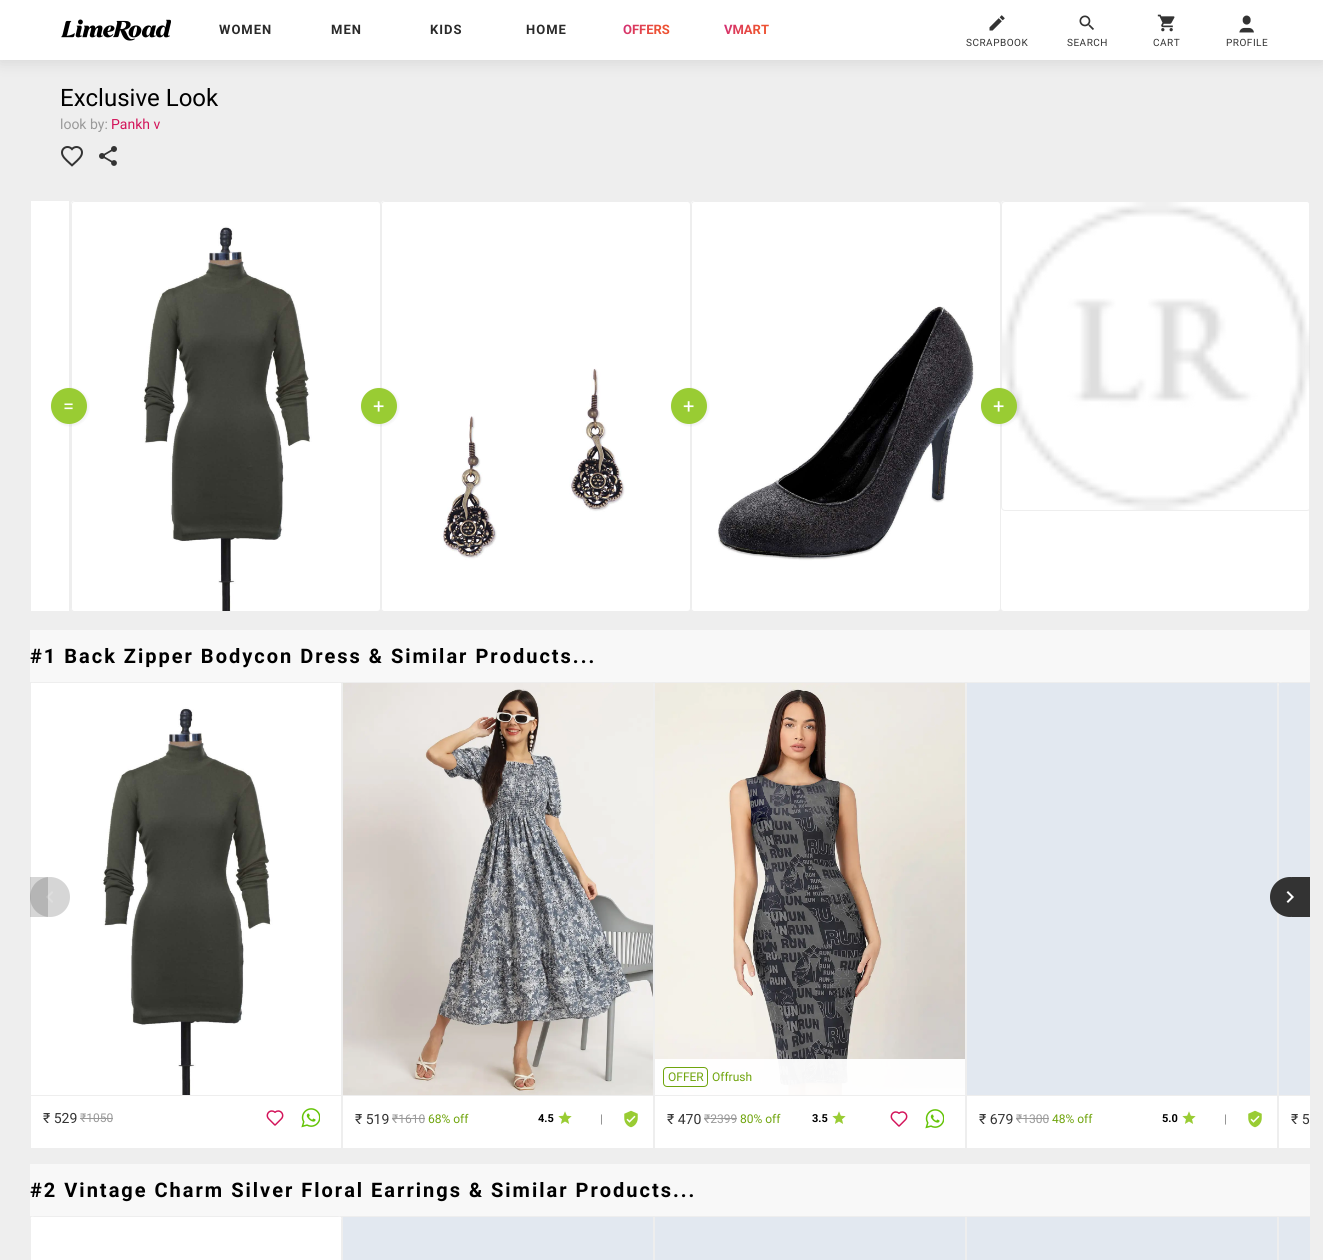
import math
import cairo

surface = cairo.ImageSurface(cairo.FORMAT_RGB24, 1323, 1260)
ctx = cairo.Context(surface)
options = cairo.FontOptions()
options.set_hint_metrics(cairo.HINT_METRICS_OFF)
options.set_hint_style(cairo.HINT_STYLE_NONE)
ctx.set_font_options(options)
ctx.set_miter_limit(4)


def set_color(code):
    ctx.set_source_rgb(*(v / 255 for v in bytes.fromhex(code[-6:])))


def draw_text(x, y, s, family, size, color, bold=False, italic=False):
    ctx.select_font_face(family, cairo.FONT_SLANT_ITALIC if italic else cairo.FONT_SLANT_NORMAL, cairo.FONT_WEIGHT_BOLD if bold else cairo.FONT_WEIGHT_NORMAL)
    ctx.set_font_size(size)
    set_color(color)
    ctx.move_to(x, y)
    ctx.show_text(s)


def draw_spaced(x, y, s, letter, word):
    ctx.move_to(x, y)
    for ch in s:
        ctx.show_text(ch)
        ctx.rel_move_to(letter + word * (ch == ' '), 0)


def fill_rect(x, y, w, h, color):
    set_color(color)
    ctx.rectangle(x, y, w, h)
    ctx.fill()


def rounded_rect(x, y, w, h, r):
    ctx.new_sub_path()
    for i, (u, v) in enumerate([(x + w - r, y + h - r), (x + r, y + h - r), (x + r, y + r), (x + w - r, y + r)]):
        ctx.arc(u, v, r, i * math.pi / 2, (i + 1) * math.pi / 2)
    ctx.close_path()


def draw_shadow(x, y, w, h, r, blur, alpha):
    ctx.push_group_with_content(cairo.CONTENT_ALPHA)
    ctx.set_operator(cairo.OPERATOR_SOURCE)
    for i in range(15, -16, -2):
        e = blur * i / 6
        if min(w, h) + 2 * e > 0:
            ctx.set_source_rgba(0, 0, 0, alpha * math.erfc((i - 1) / 8.5) / 2)
            rounded_rect(x - e, y - e, w + 2 * e, h + 2 * e, max(0, min(r + e + blur * .6, min(w, h) / 2 + e)))
            ctx.fill()
    ctx.mask(ctx.pop_group())


def draw_image(path, x, y, w, h):
    ctx.save()
    ctx.set_source_surface(cairo.ImageSurface.create_from_png(path), x, y)
    ctx.rectangle(x, y, w, h)
    ctx.fill()
    ctx.restore()


set_color("#eeeeee")
ctx.paint()
set_color("#555555")
draw_shadow(0, 2, 1323, 60, 0, 8, 0.16)
fill_rect(0, 0, 1323, 60, "#ffffff")
draw_image("assets/img1.png", 61, 19, 110, 22)
ctx.select_font_face("Roboto", cairo.FONT_SLANT_NORMAL, cairo.FONT_WEIGHT_BOLD)
ctx.set_font_size(13)
set_color("#2a2a2a")
draw_spaced(219, 34, "WOMEN", 1, 0)
draw_spaced(331, 34, "MEN", 1, 0)
draw_spaced(430, 34, "KIDS", 1, 0)
draw_spaced(526, 34, "HOME", 1, 0)
gradient = cairo.LinearGradient(624, 15, 666, 42)
gradient.add_color_stop_rgba(0, 0.808, 0.161, 0.494, 1)
gradient.add_color_stop_rgba(0.73, 0.929, 0.318, 0.2, 1)
ctx.set_source(gradient)
ctx.move_to(623, 34)
ctx.show_text("OFFERS")
gradient = cairo.LinearGradient(725, 16, 765, 42)
gradient.add_color_stop_rgba(0, 0.808, 0.161, 0.494, 1)
gradient.add_color_stop_rgba(0.73, 0.929, 0.318, 0.2, 1)
ctx.set_source(gradient)
ctx.move_to(724, 34)
ctx.show_text("VMART")
draw_image("assets/img2.png", 989, 15, 16, 16)
ctx.select_font_face("Roboto")
ctx.set_font_size(10)
set_color("#333333")
draw_spaced(966, 46, "SCRAPBOOK", 0.5, 0)
draw_image("assets/img3.png", 1079, 15, 15, 15)
draw_spaced(1067, 46, "SEARCH", 0.5, 0)
draw_image("assets/img4.png", 1157, 14, 18, 18)
draw_spaced(1153, 46, "CART", 0.5, 0)
draw_image("assets/img5.png", 1239, 15, 15, 18)
draw_spaced(1226, 46, "PROFILE", 0.5, 0)
draw_text(60, 106, "Exclusive Look", "Roboto", 24, "#000000")
draw_text(60, 129, "look by:", "Roboto", 14, "#999999")
draw_text(111, 129, "Pankh v", "Roboto", 14, "#d3145a")
draw_image("assets/img6.png", 61, 146, 22, 21)
draw_image("assets/img7.png", 99, 146, 18, 20)
fill_rect(31, 201, 38, 410, "#ffffff")
rounded_rect(70.5, 200.5, 309, 411, 3.5)
ctx.fill_preserve()
set_color("#eeeeee")
ctx.set_line_width(1)
ctx.stroke()
rounded_rect(71.5, 201.5, 309, 410, 3.5)
ctx.stroke()
draw_image("assets/img8.png", 72, 202, 308, 409)
set_color("#000000")
draw_shadow(51, 388, 38, 38, 19, 1, 0.05)
set_color("#99cc33")
ctx.arc(69, 406, 18, 0, 2 * math.pi)
ctx.fill()
draw_text(63, 413, "=", "Roboto", 20, "#ffffff")
rounded_rect(380.5, 200.5, 309, 411, 3.5)
ctx.fill_preserve()
set_color("#eeeeee")
ctx.stroke()
rounded_rect(381.5, 201.5, 309, 410, 3.5)
ctx.stroke()
draw_image("assets/img9.png", 382, 202, 308, 409)
set_color("#000000")
draw_shadow(361, 388, 38, 38, 19, 1, 0.05)
set_color("#99cc33")
ctx.arc(379, 406, 18, 0, 2 * math.pi)
ctx.fill()
draw_text(373, 413, "+", "Roboto", 20, "#ffffff")
rounded_rect(690.5, 200.5, 309, 411, 3.5)
ctx.fill_preserve()
set_color("#eeeeee")
ctx.stroke()
rounded_rect(691.5, 201.5, 309, 410, 3.5)
ctx.stroke()
draw_image("assets/img10.png", 692, 202, 308, 409)
set_color("#000000")
draw_shadow(671, 388, 38, 38, 19, 1, 0.05)
set_color("#99cc33")
ctx.arc(689, 406, 18, 0, 2 * math.pi)
ctx.fill()
draw_text(683, 413, "+", "Roboto", 20, "#ffffff")
rounded_rect(1000.5, 200.5, 309, 411, 3.5)
ctx.fill_preserve()
set_color("#eeeeee")
ctx.stroke()
ctx.save()
ctx.rectangle(30, 200, 1280, 430)
ctx.clip()
rounded_rect(1001.5, 201.5, 309, 309, 3.5)
ctx.stroke()
ctx.restore()
draw_image("assets/img11.png", 1002, 202, 308, 308)
set_color("#000000")
draw_shadow(981, 388, 38, 38, 19, 1, 0.05)
set_color("#99cc33")
ctx.arc(999, 406, 18, 0, 2 * math.pi)
ctx.fill()
draw_text(993, 413, "+", "Roboto", 20, "#ffffff")
fill_rect(30, 630, 1280, 52, "#f8f8f8")
ctx.select_font_face("Roboto", cairo.FONT_SLANT_NORMAL, cairo.FONT_WEIGHT_BOLD)
set_color("#000000")
draw_spaced(30, 663, "#1 Back Zipper Bodycon Dress & Similar Products...", 2, 0)
set_color("#ffffff")
rounded_rect(30.5, 682.5, 311, 481, 3.5)
ctx.fill_preserve()
set_color("#eeeeee")
ctx.stroke()
draw_image("assets/img14.png", 31, 683, 310, 412)
ctx.set_source_rgba(0.2, 0.2, 0.2, 0.2)
ctx.rectangle(30, 877, 18, 40)
ctx.fill()
ctx.arc(50, 897, 20, 0, 2 * math.pi)
ctx.fill()
draw_image("assets/img12.png", 46, 891, 7, 12)
set_color("#ffffff")
ctx.new_path()
ctx.move_to(1282, 682)
ctx.line_to(1310, 682)
ctx.line_to(1310, 1164)
ctx.line_to(1282, 1164)
ctx.curve_to(1280, 1164, 1278, 1162, 1278, 1160)
ctx.line_to(1278, 686)
ctx.curve_to(1278, 684, 1280, 682, 1282, 682)
ctx.close_path()
ctx.fill()
ctx.save()
ctx.rectangle(30, 682, 1280, 482)
ctx.clip()
rounded_rect(1278.5, 682.5, 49, 481, 3.5)
set_color("#eeeeee")
ctx.stroke()
ctx.restore()
fill_rect(1279, 683, 31, 412, "#e2e8f0")
fill_rect(1292, 877, 18, 40, "#333333")
set_color("#ffffff")
rounded_rect(966.5, 682.5, 311, 481, 3.5)
ctx.fill_preserve()
set_color("#eeeeee")
ctx.stroke()
fill_rect(967, 683, 310, 412, "#e2e8f0")
set_color("#333333")
ctx.arc(1290, 897, 20, 0, 2 * math.pi)
ctx.fill()
draw_image("assets/img13.png", 1286, 891, 8, 12)
fill_rect(31, 1095, 310, 1, "#eeeeee")
draw_text(43, 1123, "₹ 529", "Roboto", 14, "#333333")
draw_text(80, 1122, "₹1050", "Roboto", 12, "#999999")
fill_rect(80, 1118, 33, 1, "#999999")
draw_image("assets/img15.png", 266, 1110, 18, 16)
draw_image("assets/img16.png", 301, 1108, 19, 20)
set_color("#ffffff")
rounded_rect(342.5, 682.5, 311, 481, 3.5)
ctx.fill_preserve()
set_color("#eeeeee")
ctx.stroke()
draw_image("assets/img17.png", 343, 683, 310, 412)
fill_rect(343, 1095, 310, 1, "#eeeeee")
draw_text(355, 1124, "₹ 519", "Roboto", 14, "#333333")
draw_text(392, 1123, "₹1610", "Roboto", 12, "#999999")
fill_rect(392, 1118, 33, 1, "#999999")
draw_text(428, 1123, "68% off", "Roboto", 12, "#6fa40c")
draw_text(538, 1122, "4.5", "Roboto", 11, "#000000", bold=True)
draw_image("assets/img18.png", 558, 1111, 14, 13)
draw_text(600, 1123, "|", "Roboto", 12, "#888888")
draw_image("assets/img19.png", 624, 1110, 14, 18)
set_color("#ffffff")
rounded_rect(654.5, 682.5, 311, 481, 3.5)
ctx.fill_preserve()
set_color("#eeeeee")
ctx.stroke()
draw_image("assets/img20.png", 655, 683, 310, 412)
ctx.set_source_rgba(1, 1, 1, 0.96)
ctx.rectangle(655, 1059, 310, 36)
ctx.fill()
rounded_rect(663.5, 1067.5, 44, 19, 3.5)
set_color("#6fa40c")
ctx.stroke()
draw_text(668, 1081, "OFFER", "Roboto", 12, "#6fa40c")
draw_text(712, 1081, "Offrush", "Roboto", 12, "#6fa40c")
fill_rect(655, 1095, 310, 1, "#eeeeee")
draw_text(667, 1124, "₹ 470", "Roboto", 14, "#333333")
draw_text(704, 1123, "₹2399", "Roboto", 12, "#999999")
fill_rect(704, 1118, 33, 1, "#999999")
draw_text(740, 1123, "80% off", "Roboto", 12, "#6fa40c")
draw_text(812, 1122, "3.5", "Roboto", 11, "#000000", bold=True)
draw_image("assets/img18.png", 832, 1111, 14, 13)
draw_image("assets/img15.png", 890, 1111, 18, 16)
draw_image("assets/img16.png", 925, 1109, 19, 20)
fill_rect(967, 1095, 310, 1, "#eeeeee")
draw_text(979, 1124, "₹ 679", "Roboto", 14, "#333333")
draw_text(1016, 1123, "₹1300", "Roboto", 12, "#999999")
fill_rect(1016, 1118, 33, 1, "#999999")
draw_text(1052, 1123, "48% off", "Roboto", 12, "#6fa40c")
draw_text(1162, 1122, "5.0", "Roboto", 11, "#000000", bold=True)
draw_image("assets/img18.png", 1182, 1111, 14, 13)
draw_text(1224, 1123, "|", "Roboto", 12, "#888888")
draw_image("assets/img19.png", 1248, 1110, 14, 18)
fill_rect(1279, 1095, 31, 1, "#eeeeee")
draw_text(1291, 1124, "₹ 5", "Roboto", 14, "#333333")
fill_rect(30, 1148, 1280, 16, "#eeeeee")
fill_rect(30, 1164, 1280, 52, "#f8f8f8")
ctx.select_font_face("Roboto", cairo.FONT_SLANT_NORMAL, cairo.FONT_WEIGHT_BOLD)
ctx.set_font_size(20)
set_color("#000000")
draw_spaced(30, 1197, "#2 Vintage Charm Silver Floral Earrings & Similar Products...", 2, 0)
set_color("#ffffff")
ctx.new_path()
ctx.move_to(34, 1216)
ctx.line_to(338, 1216)
ctx.curve_to(340, 1216, 342, 1218, 342, 1220)
ctx.line_to(342, 1260)
ctx.line_to(30, 1260)
ctx.line_to(30, 1220)
ctx.curve_to(30, 1218, 32, 1216, 34, 1216)
ctx.close_path()
ctx.fill()
rounded_rect(30.5, 1216.5, 311, 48, 3.5)
set_color("#eeeeee")
ctx.stroke()
fill_rect(31, 1217, 310, 2, "#ffffff")
fill_rect(343, 1217, 310, 43, "#e2e8f0")
fill_rect(655, 1217, 310, 43, "#e2e8f0")
fill_rect(967, 1217, 310, 43, "#e2e8f0")
fill_rect(1279, 1217, 31, 43, "#e2e8f0")
surface.write_to_png("output.png")
